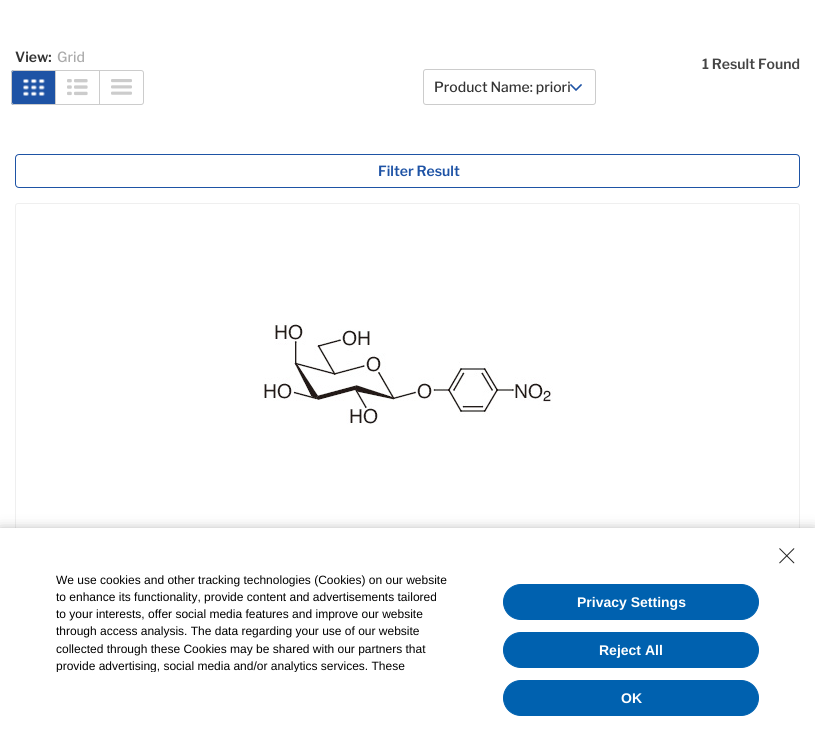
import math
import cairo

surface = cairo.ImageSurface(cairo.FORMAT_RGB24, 815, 740)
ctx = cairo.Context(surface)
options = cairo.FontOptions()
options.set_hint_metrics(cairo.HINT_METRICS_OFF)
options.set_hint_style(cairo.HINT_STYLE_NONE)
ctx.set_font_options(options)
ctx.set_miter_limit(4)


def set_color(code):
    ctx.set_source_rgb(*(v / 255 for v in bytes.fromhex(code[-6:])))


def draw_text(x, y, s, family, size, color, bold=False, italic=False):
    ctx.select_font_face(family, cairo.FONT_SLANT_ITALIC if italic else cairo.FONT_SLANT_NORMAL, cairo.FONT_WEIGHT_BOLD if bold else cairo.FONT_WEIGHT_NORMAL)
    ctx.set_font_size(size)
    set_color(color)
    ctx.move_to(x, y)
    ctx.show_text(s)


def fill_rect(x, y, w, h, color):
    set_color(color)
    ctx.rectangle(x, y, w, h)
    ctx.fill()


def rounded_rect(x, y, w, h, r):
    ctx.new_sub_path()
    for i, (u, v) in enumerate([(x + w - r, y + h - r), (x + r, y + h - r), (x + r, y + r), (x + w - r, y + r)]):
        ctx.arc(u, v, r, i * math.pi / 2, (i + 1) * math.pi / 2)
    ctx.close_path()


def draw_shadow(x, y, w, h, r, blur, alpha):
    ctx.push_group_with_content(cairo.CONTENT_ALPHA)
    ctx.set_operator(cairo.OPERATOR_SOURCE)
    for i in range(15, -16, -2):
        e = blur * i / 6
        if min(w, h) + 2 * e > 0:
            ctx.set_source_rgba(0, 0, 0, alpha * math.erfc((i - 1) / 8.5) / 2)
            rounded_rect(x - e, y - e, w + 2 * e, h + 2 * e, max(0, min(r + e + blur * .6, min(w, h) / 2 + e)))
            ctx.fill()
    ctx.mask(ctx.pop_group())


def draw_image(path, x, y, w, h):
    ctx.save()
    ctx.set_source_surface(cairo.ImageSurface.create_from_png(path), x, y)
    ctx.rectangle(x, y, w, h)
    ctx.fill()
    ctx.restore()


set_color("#ffffff")
ctx.paint()
draw_text(15, 62, "View:", "Libre Franklin SemiBold", 14, "#333333")
draw_text(57, 62, "Grid", "Libre Franklin Medium", 14, "#aaaaaa")
draw_image("assets/img1.png", 11, 70, 44, 35)
ctx.new_path()
ctx.move_to(14, 70.5)
ctx.line_to(55.5, 70.5)
ctx.line_to(55.5, 104.5)
ctx.line_to(14, 104.5)
ctx.curve_to(12.5, 104.5, 11.5, 103.5, 11.5, 102)
ctx.line_to(11.5, 73)
ctx.curve_to(11.5, 71.5, 12.5, 70.5, 14, 70.5)
ctx.close_path()
set_color("#cccccc")
ctx.set_line_width(1)
ctx.stroke()
draw_image("assets/img2.png", 67, 79, 21, 17)
ctx.rectangle(55.5, 70.5, 44, 34)
ctx.stroke()
draw_image("assets/img3.png", 111, 79, 21, 16)
ctx.new_path()
ctx.move_to(99.5, 70.5)
ctx.line_to(141, 70.5)
ctx.curve_to(142.5, 70.5, 143.5, 71.5, 143.5, 73)
ctx.line_to(143.5, 102)
ctx.curve_to(143.5, 103.5, 142.5, 104.5, 141, 104.5)
ctx.line_to(99.5, 104.5)
ctx.close_path()
ctx.stroke()
draw_text(702, 69, "1 Result Found", "Libre Franklin SemiBold", 14, "#454545")
rounded_rect(423.5, 69.5, 172, 35, 2.5)
set_color("#cccccc")
ctx.stroke()
draw_text(434, 92, "Product Name: priori", "Libre Franklin Medium", 14, "#333333")
draw_image("assets/img4.png", 570, 84, 12, 7)
rounded_rect(15.5, 154.5, 784, 33, 3.5)
set_color("#1e53a5")
ctx.stroke()
draw_text(378, 176, "Filter Result", "Libre Franklin SemiBold", 14, "#1e53a5")
rounded_rect(15.5, 203.5, 784, 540, 2.5)
set_color("#efefef")
ctx.stroke()
draw_image("assets/img5.png", 263, 323, 290, 102)
set_color("#000000")
draw_shadow(0, 533, 815, 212, 0, 7.5, 0.5)
fill_rect(0, 528, 815, 212, "#ffffff")
draw_image("assets/img6.png", 779, 548, 16, 16)
draw_text(56, 584, "We use cookies and other tracking technologies (Cookies) on our website", "Liberation Sans", 12, "#000000")
draw_text(56, 601, "to enhance its functionality, provide content and advertisements tailored", "Liberation Sans", 12, "#000000")
draw_text(56, 618, "to your interests, offer social media features and improve our website", "Liberation Sans", 12, "#000000")
draw_text(56, 635, "through access analysis. The data regarding your use of our website", "Liberation Sans", 12, "#000000")
draw_text(56, 653, "collected through these Cookies may be shared with our partners that", "Liberation Sans", 12, "#000000")
ctx.save()
ctx.rectangle(56, 572, 391, 100)
ctx.clip()
draw_text(56, 670, "provide advertising, social media and/or analytics services. These", "Liberation Sans", 12, "#000000")
ctx.restore()
set_color("#0061af")
rounded_rect(503.5, 584.5, 255, 35, 17.5)
ctx.fill_preserve()
ctx.stroke()
draw_text(577, 607, "Privacy Settings", "Liberation Sans", 14, "#ffffff", bold=True)
set_color("#0061af")
rounded_rect(503.5, 632.5, 255, 35, 17.5)
ctx.fill_preserve()
ctx.stroke()
draw_text(599, 655, "Reject All", "Liberation Sans", 14, "#ffffff", bold=True)
set_color("#0061af")
rounded_rect(503.5, 680.5, 255, 35, 17.5)
ctx.fill_preserve()
ctx.stroke()
draw_text(621, 703, "OK", "Liberation Sans", 14, "#ffffff", bold=True)
surface.write_to_png("output.png")
